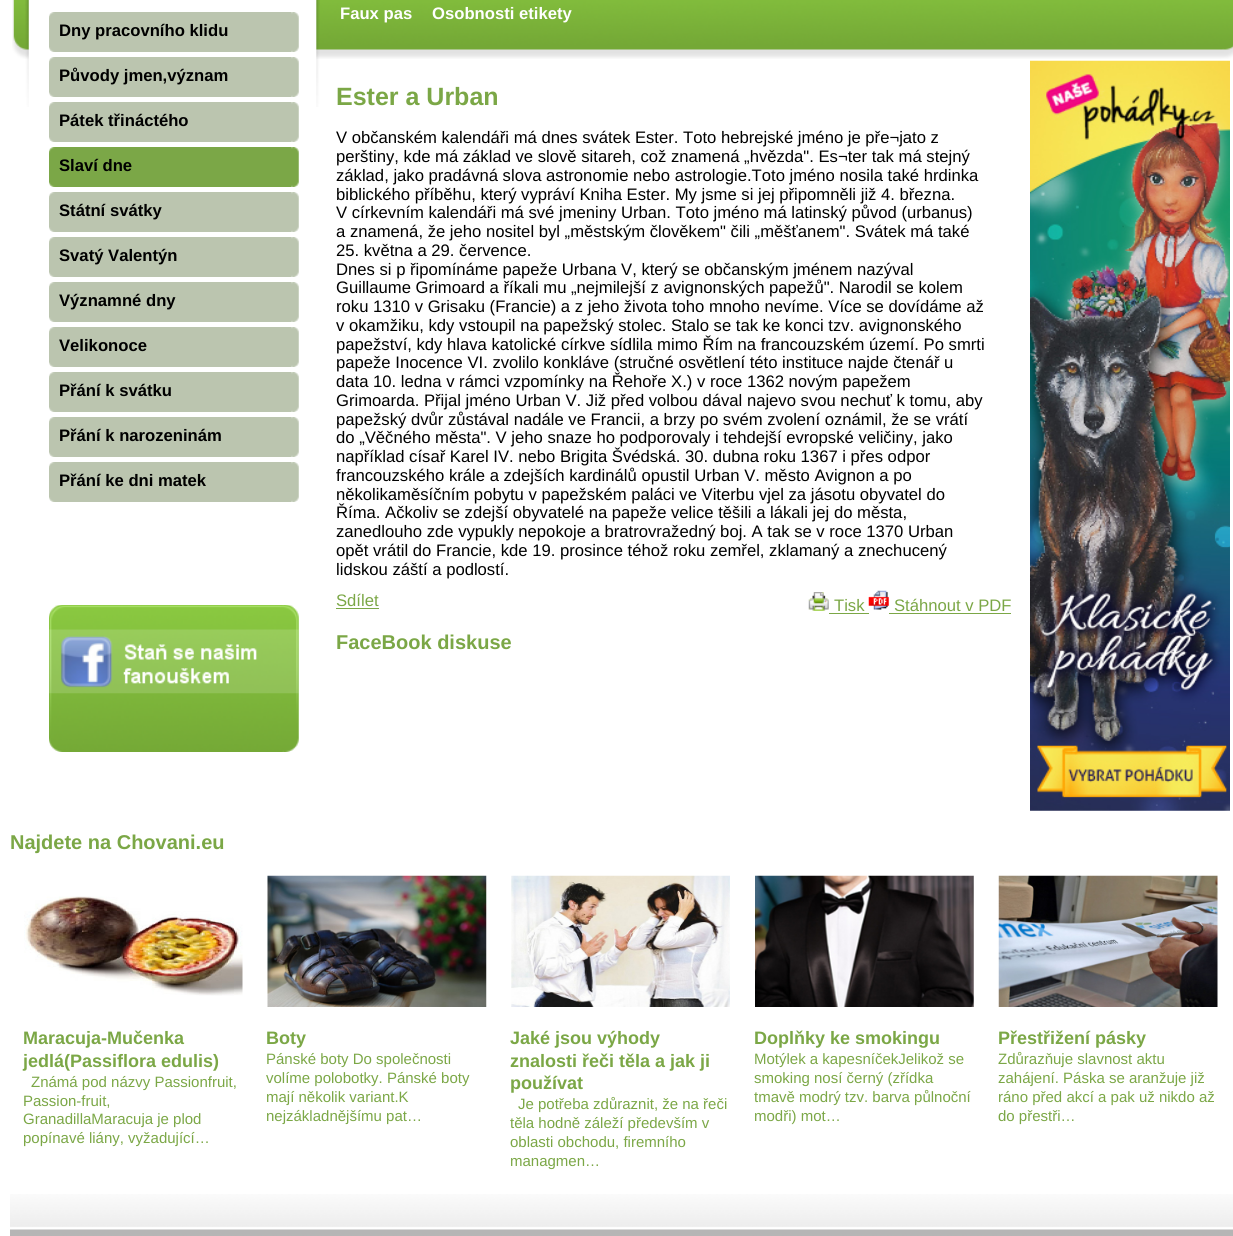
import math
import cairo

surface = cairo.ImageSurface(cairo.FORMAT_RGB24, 1233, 1236)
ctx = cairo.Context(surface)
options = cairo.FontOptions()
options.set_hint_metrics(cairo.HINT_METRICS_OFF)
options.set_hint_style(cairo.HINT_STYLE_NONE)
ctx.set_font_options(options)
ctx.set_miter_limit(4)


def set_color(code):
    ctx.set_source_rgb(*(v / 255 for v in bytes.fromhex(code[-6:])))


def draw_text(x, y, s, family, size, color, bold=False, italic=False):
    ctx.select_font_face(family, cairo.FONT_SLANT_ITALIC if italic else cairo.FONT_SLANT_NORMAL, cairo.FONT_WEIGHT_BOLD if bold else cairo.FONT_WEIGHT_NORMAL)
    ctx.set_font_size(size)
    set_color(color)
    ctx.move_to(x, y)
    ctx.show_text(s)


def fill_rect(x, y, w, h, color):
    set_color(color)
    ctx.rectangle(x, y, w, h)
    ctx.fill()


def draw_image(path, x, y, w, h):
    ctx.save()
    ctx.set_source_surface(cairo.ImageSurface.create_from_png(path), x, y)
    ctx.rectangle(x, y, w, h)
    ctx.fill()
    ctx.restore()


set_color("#ffffff")
ctx.paint()
draw_image("assets/img1.png", 12, 0, 1221, 59)
draw_text(340, 19, "Faux pas", "Liberation Sans", 16.65, "#ffffff", bold=True)
draw_text(432, 19, "Osobnosti etikety", "Liberation Sans", 16.65, "#ffffff", bold=True)
draw_image("assets/img2.png", 25, 0, 295, 107)
draw_image("assets/img3.png", 49, 12, 250, 40)
draw_text(59, 36, "Dny pracovního klidu", "Liberation Sans", 16.65, "#000000", bold=True)
draw_image("assets/img3.png", 49, 57, 250, 40)
draw_text(59, 81, "Původy jmen,význam", "Liberation Sans", 16.65, "#000000", bold=True)
draw_image("assets/img3.png", 49, 102, 250, 40)
draw_text(59, 126, "Pátek třináctého", "Liberation Sans", 16.65, "#000000", bold=True)
draw_image("assets/img4.png", 49, 147, 250, 40)
draw_text(59, 171, "Slaví dne", "Liberation Sans", 16.65, "#000000", bold=True)
draw_image("assets/img3.png", 49, 192, 250, 40)
draw_text(59, 216, "Státní svátky", "Liberation Sans", 16.65, "#000000", bold=True)
draw_image("assets/img3.png", 49, 237, 250, 40)
draw_text(59, 261, "Svatý Valentýn", "Liberation Sans", 16.65, "#000000", bold=True)
draw_image("assets/img3.png", 49, 282, 250, 40)
draw_text(59, 306, "Významné dny", "Liberation Sans", 16.65, "#000000", bold=True)
draw_image("assets/img5.png", 49, 327, 250, 40)
draw_text(59, 351, "Velikonoce", "Liberation Sans", 16.65, "#000000", bold=True)
draw_image("assets/img3.png", 49, 372, 250, 40)
draw_text(59, 396, "Přání k svátku", "Liberation Sans", 16.65, "#000000", bold=True)
draw_image("assets/img3.png", 49, 417, 250, 40)
draw_text(59, 441, "Přání k narozeninám", "Liberation Sans", 16.65, "#000000", bold=True)
draw_image("assets/img3.png", 49, 462, 250, 40)
draw_text(59, 486, "Přání ke dni matek", "Liberation Sans", 16.65, "#000000", bold=True)
draw_image("assets/img6.png", 49, 605, 250, 147)
draw_image("assets/img7.png", 49, 629, 250, 65)
draw_text(336, 105, "Ester a Urban", "Liberation Sans", 25, "#7ba746", bold=True)
draw_text(336, 143, "V občanském kalendáři má dnes svátek Ester. Toto hebrejské jméno je pře¬jato z", "Liberation Sans", 16.65, "#000000")
draw_text(336, 162, "perštiny, kde má základ ve slově sitareh, což znamená „hvězda\". Es¬ter tak má stejný", "Liberation Sans", 16.65, "#000000")
draw_text(336, 181, "základ, jako pradávná slova astronomie nebo astrologie.Toto jméno nosila také hrdinka", "Liberation Sans", 16.65, "#000000")
draw_text(336, 200, "biblického příběhu, který vypráví Kniha Ester. My jsme si jej připomněli již 4. března.", "Liberation Sans", 16.65, "#000000")
draw_text(336, 218, "V církevním kalendáři má své jmeniny Urban. Toto jméno má latinský původ (urbanus)", "Liberation Sans", 16.65, "#000000")
draw_text(336, 237, "a znamená, že jeho nositel byl „městským člověkem\" čili „měšťanem\". Svátek má také", "Liberation Sans", 16.65, "#000000")
draw_text(336, 256, "25. května a 29. července.", "Liberation Sans", 16.65, "#000000")
draw_text(336, 275, "Dnes si p řipomínáme papeže Urbana V, který se občanským jménem nazýval", "Liberation Sans", 16.65, "#000000")
draw_text(336, 293, "Guillaume Grimoard a říkali mu „nejmilejší z avignonských papežů\". Narodil se kolem", "Liberation Sans", 16.65, "#000000")
draw_text(336, 312, "roku 1310 v Grisaku (Francie) a z jeho života toho mnoho nevíme. Více se dovídáme až", "Liberation Sans", 16.65, "#000000")
draw_text(336, 331, "v okamžiku, kdy vstoupil na papežský stolec. Stalo se tak ke konci tzv. avignonského", "Liberation Sans", 16.65, "#000000")
draw_text(336, 350, "papežství, kdy hlava katolické církve sídlila mimo Řím na francouzském území. Po smrti", "Liberation Sans", 16.65, "#000000")
draw_text(336, 368, "papeže Inocence VI. zvolilo konkláve (stručné osvětlení této instituce najde čtenář u", "Liberation Sans", 16.65, "#000000")
draw_text(336, 387, "data 10. ledna v rámci vzpomínky na Řehoře X.) v roce 1362 novým papežem", "Liberation Sans", 16.65, "#000000")
draw_text(336, 406, "Grimoarda. Přijal jméno Urban V. Již před volbou dával najevo svou nechuť k tomu, aby", "Liberation Sans", 16.65, "#000000")
draw_text(336, 425, "papežský dvůr zůstával nadále ve Francii, a brzy po svém zvolení oznámil, že se vrátí", "Liberation Sans", 16.65, "#000000")
draw_text(336, 443, "do „Věčného města\". V jeho snaze ho podporovaly i tehdejší evropské veličiny, jako", "Liberation Sans", 16.65, "#000000")
draw_text(336, 462, "například císař Karel IV. nebo Brigita Švédská. 30. dubna roku 1367 i přes odpor", "Liberation Sans", 16.65, "#000000")
draw_text(336, 481, "francouzského krále a zdejších kardinálů opustil Urban V. město Avignon a po", "Liberation Sans", 16.65, "#000000")
draw_text(336, 500, "několikaměsíčním pobytu v papežském paláci ve Viterbu vjel za jásotu obyvatel do", "Liberation Sans", 16.65, "#000000")
draw_text(336, 518, "Říma. Ačkoliv se zdejší obyvatelé na papeže velice těšili a lákali jej do města,", "Liberation Sans", 16.65, "#000000")
draw_text(336, 537, "zanedlouho zde vypukly nepokoje a bratrovražedný boj. A tak se v roce 1370 Urban", "Liberation Sans", 16.65, "#000000")
draw_text(336, 556, "opět vrátil do Francie, kde 19. prosince téhož roku zemřel, zklamaný a znechucený", "Liberation Sans", 16.65, "#000000")
draw_text(336, 575, "lidskou záští a podlostí.", "Liberation Sans", 16.65, "#000000")
draw_text(336, 606, "Sdílet", "Liberation Sans", 16.65, "#7ba746")
fill_rect(336, 608, 43, 1, "#7ba746")
draw_image("assets/img8.png", 808, 592, 21, 19)
draw_text(834, 611, "Tisk", "Liberation Sans", 16.65, "#7ba746")
fill_rect(829, 613, 40, 1, "#7ba746")
draw_image("assets/img9.png", 868, 590, 21, 20)
draw_text(894, 611, "Stáhnout v PDF", "Liberation Sans", 16.65, "#7ba746")
fill_rect(889, 613, 122, 1, "#7ba746")
draw_text(336, 649, "FaceBook diskuse", "Liberation Sans", 20, "#7ba746", bold=True)
draw_image("assets/img10.png", 1030, 60, 200, 751)
draw_text(10, 849, "Najdete na Chovani.eu", "Liberation Sans", 20, "#7ba746", bold=True)
draw_image("assets/img11.png", 24, 896, 219, 100)
draw_text(23, 1044, "Maracuja-Mučenka", "Liberation Sans", 18, "#7ba746", bold=True)
draw_text(23, 1067, "jedlá(Passiflora edulis)", "Liberation Sans", 18, "#7ba746", bold=True)
draw_text(31, 1087, "Známá pod názvy Passionfruit,", "Liberation Sans", 15, "#7ba746")
draw_text(23, 1106, "Passion-fruit,", "Liberation Sans", 15, "#7ba746")
draw_text(23, 1124, "GranadillaMaracuja je plod", "Liberation Sans", 15, "#7ba746")
draw_text(23, 1143, "popínavé liány, vyžadující…", "Liberation Sans", 15, "#7ba746")
draw_image("assets/img12.png", 267, 875, 220, 132)
draw_text(266, 1044, "Boty", "Liberation Sans", 18, "#7ba746", bold=True)
draw_text(266, 1064, "Pánské boty Do společnosti", "Liberation Sans", 15, "#7ba746")
draw_text(266, 1083, "volíme polobotky. Pánské boty", "Liberation Sans", 15, "#7ba746")
draw_text(266, 1102, "mají několik variant.K", "Liberation Sans", 15, "#7ba746")
draw_text(266, 1121, "nejzákladnějšímu pat…", "Liberation Sans", 15, "#7ba746")
draw_image("assets/img13.png", 511, 875, 219, 132)
draw_text(510, 1044, "Jaké jsou výhody", "Liberation Sans", 18, "#7ba746", bold=True)
draw_text(510, 1067, "znalosti řeči těla a jak ji", "Liberation Sans", 18, "#7ba746", bold=True)
draw_text(510, 1089, "používat", "Liberation Sans", 18, "#7ba746", bold=True)
draw_text(518, 1109, "Je potřeba zdůraznit, že na řeči", "Liberation Sans", 15, "#7ba746")
draw_text(510, 1128, "těla hodně záleží především v", "Liberation Sans", 15, "#7ba746")
draw_text(510, 1147, "oblasti obchodu, firemního", "Liberation Sans", 15, "#7ba746")
draw_text(510, 1166, "managmen…", "Liberation Sans", 15, "#7ba746")
draw_image("assets/img14.png", 755, 875, 219, 132)
draw_text(754, 1044, "Doplňky ke smokingu", "Liberation Sans", 18, "#7ba746", bold=True)
draw_text(754, 1064, "Motýlek a kapesníčekJelikož se", "Liberation Sans", 15, "#7ba746")
draw_text(754, 1083, "smoking nosí černý (zřídka", "Liberation Sans", 15, "#7ba746")
draw_text(754, 1102, "tmavě modrý tzv. barva půlnoční", "Liberation Sans", 15, "#7ba746")
draw_text(754, 1121, "modři) mot…", "Liberation Sans", 15, "#7ba746")
draw_image("assets/img15.png", 998, 875, 220, 132)
draw_text(998, 1044, "Přestřižení pásky", "Liberation Sans", 18, "#7ba746", bold=True)
draw_text(998, 1064, "Zdůrazňuje slavnost aktu", "Liberation Sans", 15, "#7ba746")
draw_text(998, 1083, "zahájení. Páska se aranžuje již", "Liberation Sans", 15, "#7ba746")
draw_text(998, 1102, "ráno před akcí a pak už nikdo až", "Liberation Sans", 15, "#7ba746")
draw_text(998, 1121, "do přestři…", "Liberation Sans", 15, "#7ba746")
draw_image("assets/img16.png", 10, 1194, 1223, 42)
surface.write_to_png("output.png")
